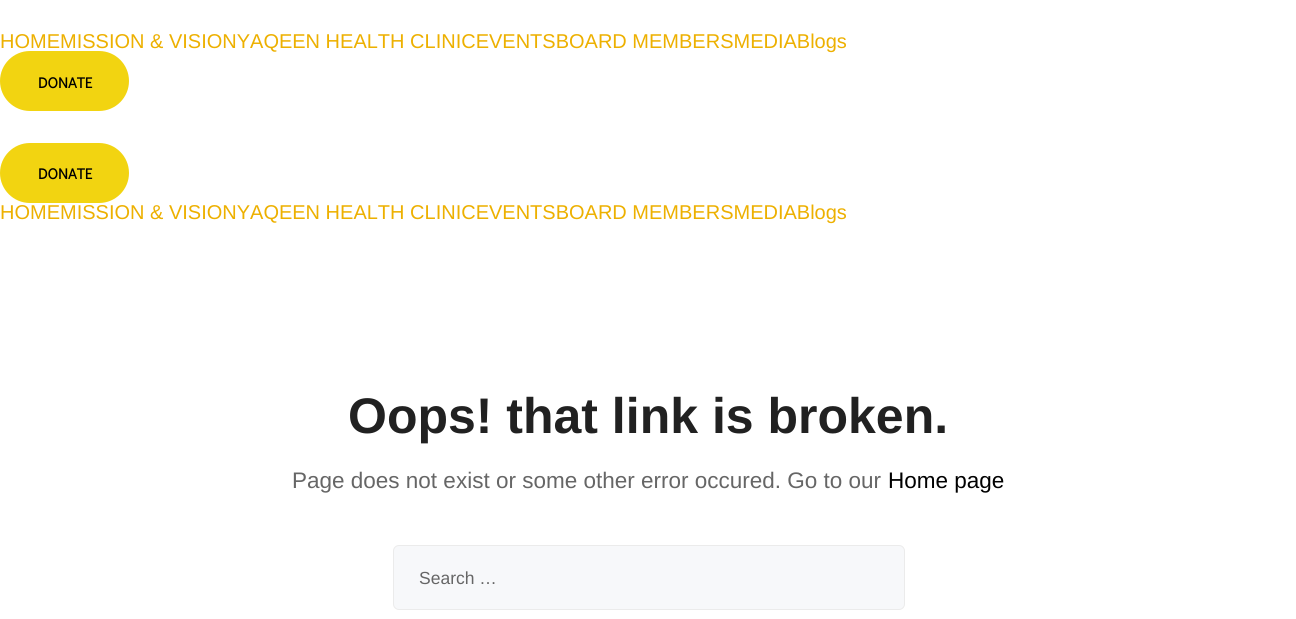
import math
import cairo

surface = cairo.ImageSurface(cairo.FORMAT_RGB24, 1296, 619)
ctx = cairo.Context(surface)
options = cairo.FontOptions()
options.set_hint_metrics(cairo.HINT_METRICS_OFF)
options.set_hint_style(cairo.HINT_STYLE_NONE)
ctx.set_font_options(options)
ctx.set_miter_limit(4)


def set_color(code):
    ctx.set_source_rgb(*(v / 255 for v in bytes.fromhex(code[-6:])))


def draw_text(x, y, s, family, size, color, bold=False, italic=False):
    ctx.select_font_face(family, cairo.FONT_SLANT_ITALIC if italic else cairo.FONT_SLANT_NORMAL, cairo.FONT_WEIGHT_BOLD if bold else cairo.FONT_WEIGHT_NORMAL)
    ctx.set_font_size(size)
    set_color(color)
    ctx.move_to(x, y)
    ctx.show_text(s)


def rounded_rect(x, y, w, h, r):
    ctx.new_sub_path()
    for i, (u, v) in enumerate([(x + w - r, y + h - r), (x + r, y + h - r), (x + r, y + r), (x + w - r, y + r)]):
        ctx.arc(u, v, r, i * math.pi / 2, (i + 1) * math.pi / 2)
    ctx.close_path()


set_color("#ffffff")
ctx.paint()
set_color("#f2d411")
rounded_rect(0, 51, 129, 60, 30)
ctx.fill()
draw_text(0, 48, "HOMEMISSION & VISIONYAQEEN HEALTH CLINICEVENTSBOARD MEMBERSMEDIABlogs", "Liberation Sans", 20, "#edb000")
draw_text(38, 88, "DONATE", "Didact Gothic", 15, "#000000", bold=True)
set_color("#f2d411")
rounded_rect(0, 143, 129, 60, 30)
ctx.fill()
draw_text(38, 179, "DONATE", "Didact Gothic", 15, "#000000", bold=True)
draw_text(0, 219, "HOMEMISSION & VISIONYAQEEN HEALTH CLINICEVENTSBOARD MEMBERSMEDIABlogs", "Liberation Sans", 20, "#edb000")
draw_text(348, 433, "Oops! that link is broken.", "Liberation Sans", 50, "#212121", bold=True)
draw_text(292, 488, "Page does not exist or some other error occured. Go to our", "Liberation Sans", 22.5, "#666666")
draw_text(888, 488, "Home page", "Liberation Sans", 22.5, "#000000")
set_color("#f7f8fa")
rounded_rect(393.5, 545.5, 511, 64, 5.5)
ctx.fill_preserve()
set_color("#ebebeb")
ctx.set_line_width(1)
ctx.stroke()
draw_text(419, 584, "Search …", "Liberation Sans", 17.5, "#666666")
surface.write_to_png("output.png")
